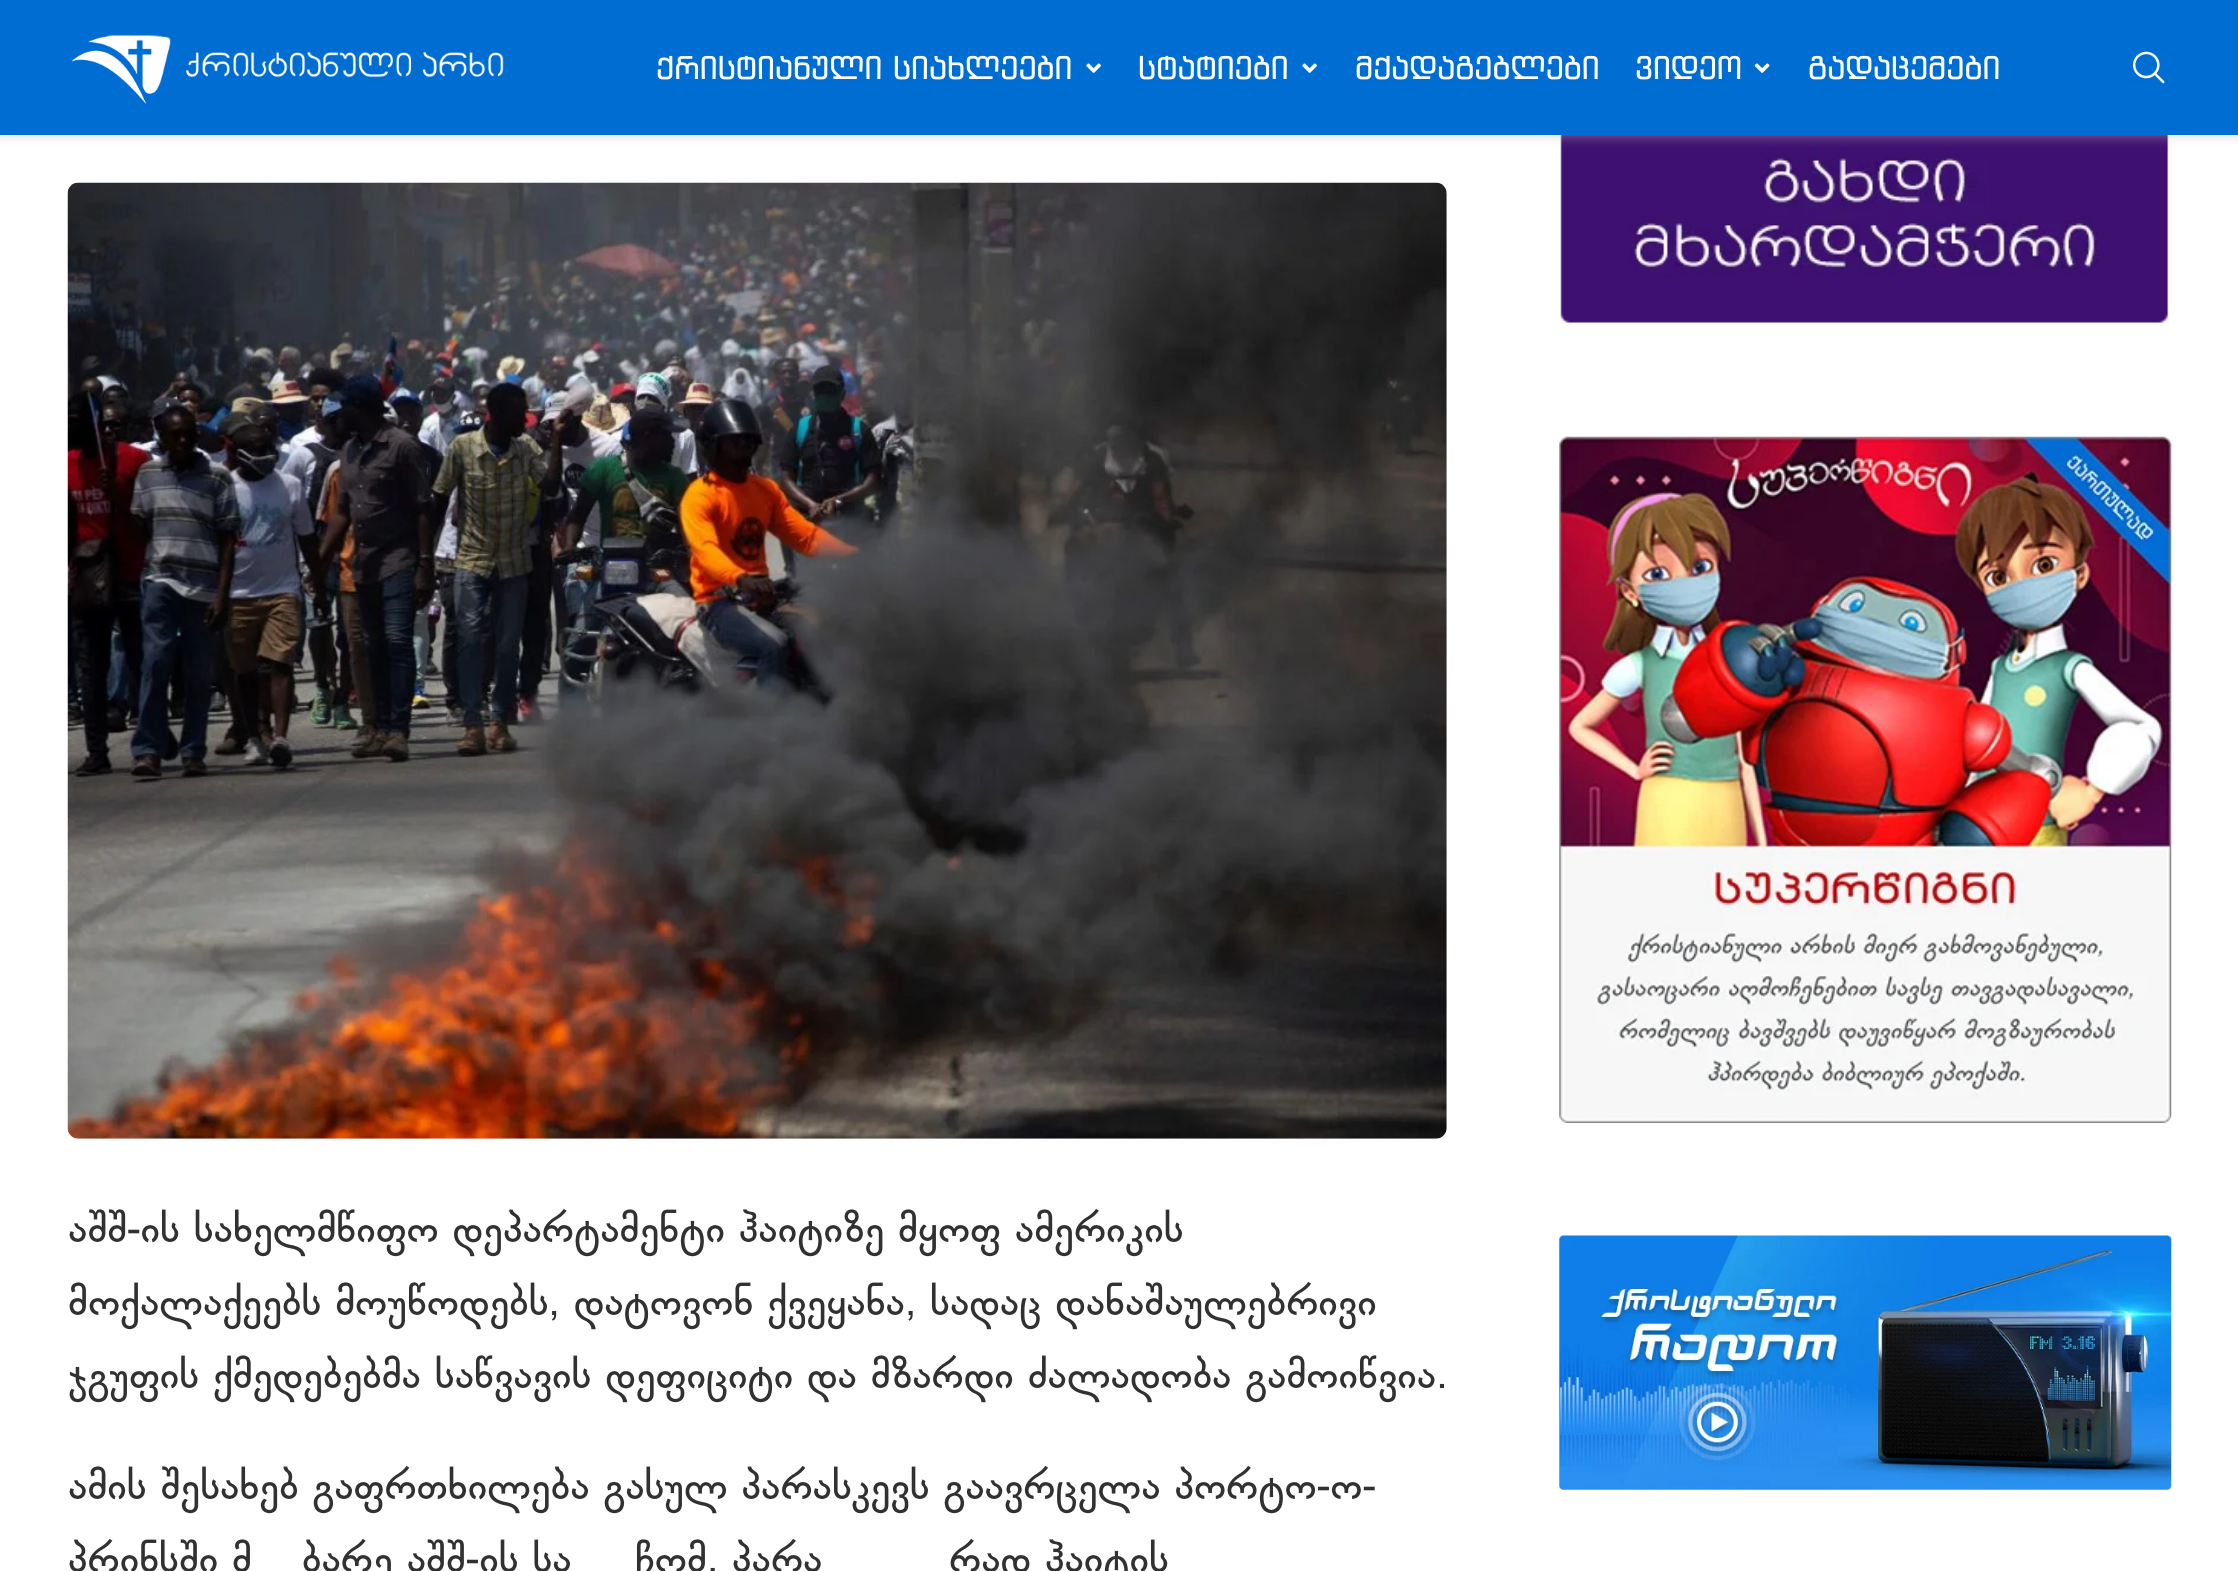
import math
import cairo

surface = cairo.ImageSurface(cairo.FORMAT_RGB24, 2238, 1571)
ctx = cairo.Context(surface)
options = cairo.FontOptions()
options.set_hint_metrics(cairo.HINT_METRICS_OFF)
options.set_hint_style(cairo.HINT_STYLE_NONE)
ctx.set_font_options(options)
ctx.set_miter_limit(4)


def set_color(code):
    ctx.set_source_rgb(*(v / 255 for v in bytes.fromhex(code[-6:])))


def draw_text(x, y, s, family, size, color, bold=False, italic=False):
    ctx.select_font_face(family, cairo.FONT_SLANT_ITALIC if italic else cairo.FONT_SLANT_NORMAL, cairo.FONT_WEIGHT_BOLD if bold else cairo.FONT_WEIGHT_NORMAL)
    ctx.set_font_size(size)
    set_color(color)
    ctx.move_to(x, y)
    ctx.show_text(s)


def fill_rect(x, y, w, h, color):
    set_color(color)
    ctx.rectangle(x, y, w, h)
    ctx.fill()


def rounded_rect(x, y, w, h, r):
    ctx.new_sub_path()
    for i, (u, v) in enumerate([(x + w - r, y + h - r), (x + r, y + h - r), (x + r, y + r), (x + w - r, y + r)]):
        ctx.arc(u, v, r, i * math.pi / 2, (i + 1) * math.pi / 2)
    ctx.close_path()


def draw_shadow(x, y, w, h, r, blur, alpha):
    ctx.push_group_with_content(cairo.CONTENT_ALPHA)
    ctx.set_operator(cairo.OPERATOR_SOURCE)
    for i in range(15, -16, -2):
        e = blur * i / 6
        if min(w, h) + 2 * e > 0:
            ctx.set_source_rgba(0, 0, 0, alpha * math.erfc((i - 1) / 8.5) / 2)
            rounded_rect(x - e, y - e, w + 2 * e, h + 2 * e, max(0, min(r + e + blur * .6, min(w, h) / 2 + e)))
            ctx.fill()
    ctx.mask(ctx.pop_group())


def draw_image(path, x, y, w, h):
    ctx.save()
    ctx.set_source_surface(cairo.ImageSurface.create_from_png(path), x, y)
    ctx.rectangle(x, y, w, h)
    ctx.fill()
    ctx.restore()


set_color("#ffffff")
ctx.paint()
draw_image("assets/img7.png", 1560, 135, 609, 188)
set_color("#bebebe")
draw_shadow(0, 2, 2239, 135, 0, 5.5, 0.46)
fill_rect(0, 0, 2238, 135, "#006dd3")
draw_image("assets/img1.png", 71, 35, 433, 69)
draw_text(656, 79, "ქრისტიანული სიახლეები", "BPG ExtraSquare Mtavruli", 31.5, "#ffffff")
draw_image("assets/img2.png", 1086, 63, 15, 10)
draw_text(1138, 79, "სტატიები", "BPG ExtraSquare Mtavruli", 31.5, "#ffffff")
draw_image("assets/img3.png", 1302, 63, 15, 10)
draw_text(1355, 79, "მქადაგებლები", "BPG ExtraSquare Mtavruli", 31.5, "#ffffff")
draw_text(1635, 79, "ვიდეო", "BPG ExtraSquare Mtavruli", 31.5, "#ffffff")
draw_image("assets/img4.png", 1754, 63, 16, 10)
draw_text(1808, 79, "გადაცემები", "BPG ExtraSquare Mtavruli", 31.5, "#ffffff")
draw_image("assets/img5.png", 2133, 51, 32, 33)
draw_image("assets/img6.png", 67, 182, 1380, 957)
draw_text(68, 1242, "აშშ-ის სახელმწიფო დეპარტამენტი ჰაიტიზე მყოფ ამერიკის", "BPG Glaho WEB", 40.5, "#313131")
draw_text(68, 1315, "მოქალაქეებს მოუწოდებს, დატოვონ ქვეყანა, სადაც დანაშაულებრივი", "BPG Glaho WEB", 40.5, "#313131")
draw_text(68, 1388, "ჯგუფის ქმედებებმა საწვავის დეფიციტი და მზარდი ძალადობა გამოიწვია.", "BPG Glaho WEB", 40.5, "#313131")
draw_text(68, 1499, "ამის შესახებ გაფრთხილება გასულ პარასკევს გაავრცელა პორტო-ო-", "BPG Glaho WEB", 40.5, "#313131")
draw_text(68, 1572, "პრინსში მ", "BPG Glaho WEB", 40.5, "#313131")
draw_text(302, 1572, "ბარე აშშ-ის სა", "BPG Glaho WEB", 40.5, "#313131")
draw_text(635, 1572, "ჩომ. პარა", "BPG Glaho WEB", 40.5, "#313131")
draw_text(949, 1572, "რად ჰაიტის", "BPG Glaho WEB", 40.5, "#313131")
draw_image("assets/img8.png", 1559, 436, 613, 687)
draw_image("assets/img9.png", 1559, 1235, 613, 255)
surface.write_to_png("output.png")
